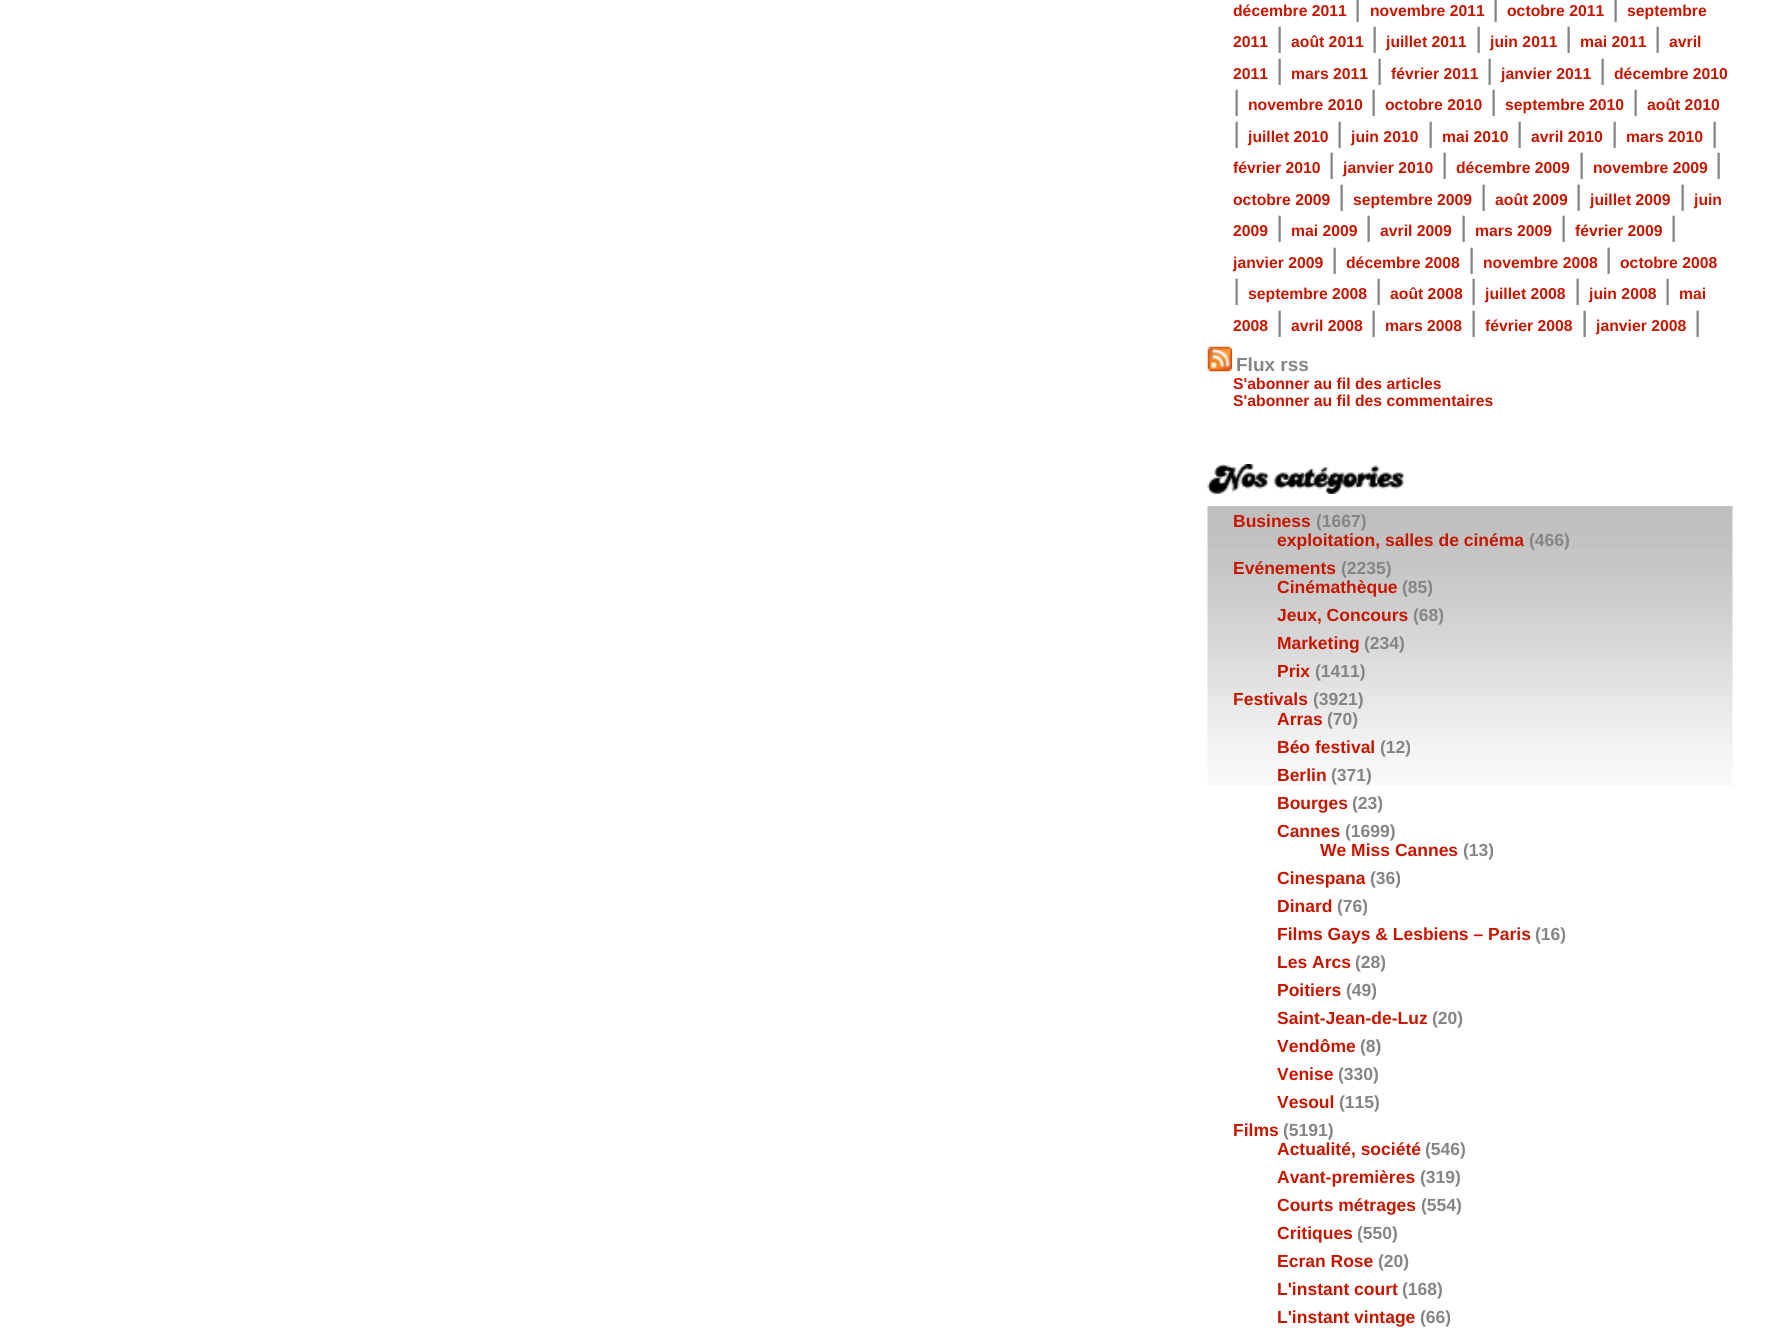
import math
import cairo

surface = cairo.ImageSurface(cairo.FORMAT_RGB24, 1783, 1337)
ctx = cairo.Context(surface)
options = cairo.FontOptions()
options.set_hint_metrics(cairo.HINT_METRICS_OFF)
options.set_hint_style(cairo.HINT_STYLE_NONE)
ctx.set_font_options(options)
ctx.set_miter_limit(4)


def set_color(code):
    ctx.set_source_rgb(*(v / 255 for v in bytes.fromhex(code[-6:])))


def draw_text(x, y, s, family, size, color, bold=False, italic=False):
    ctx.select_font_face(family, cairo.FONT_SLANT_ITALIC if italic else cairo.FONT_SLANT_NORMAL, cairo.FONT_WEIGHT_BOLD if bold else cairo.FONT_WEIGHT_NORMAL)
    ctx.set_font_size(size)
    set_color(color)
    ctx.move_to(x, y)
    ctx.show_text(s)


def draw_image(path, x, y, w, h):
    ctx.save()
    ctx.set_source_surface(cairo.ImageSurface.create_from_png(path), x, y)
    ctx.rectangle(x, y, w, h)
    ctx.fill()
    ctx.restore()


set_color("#ffffff")
ctx.paint()
draw_text(1233, 16, "décembre 2011", "Liberation Sans", 15.75, "#c71600", bold=True)
draw_text(1354, 16, "|", "Liberation Sans", 28, "#858585")
draw_text(1370, 16, "novembre 2011", "Liberation Sans", 15.75, "#c71600", bold=True)
draw_text(1492, 16, "|", "Liberation Sans", 28, "#858585")
draw_text(1507, 16, "octobre 2011", "Liberation Sans", 15.75, "#c71600", bold=True)
draw_text(1612, 16, "|", "Liberation Sans", 28, "#858585")
draw_text(1627, 16, "septembre", "Liberation Sans", 15.75, "#c71600", bold=True)
draw_text(1233, 47, "2011", "Liberation Sans", 15.75, "#c71600", bold=True)
draw_text(1276, 47, "|", "Liberation Sans", 28, "#858585")
draw_text(1291, 47, "août 2011", "Liberation Sans", 15.75, "#c71600", bold=True)
draw_text(1371, 47, "|", "Liberation Sans", 28, "#858585")
draw_text(1386, 47, "juillet 2011", "Liberation Sans", 15.75, "#c71600", bold=True)
draw_text(1475, 47, "|", "Liberation Sans", 28, "#858585")
draw_text(1490, 47, "juin 2011", "Liberation Sans", 15.75, "#c71600", bold=True)
draw_text(1565, 47, "|", "Liberation Sans", 28, "#858585")
draw_text(1580, 47, "mai 2011", "Liberation Sans", 15.75, "#c71600", bold=True)
draw_text(1654, 47, "|", "Liberation Sans", 28, "#858585")
draw_text(1669, 47, "avril", "Liberation Sans", 15.75, "#c71600", bold=True)
draw_text(1233, 79, "2011", "Liberation Sans", 15.75, "#c71600", bold=True)
draw_text(1276, 79, "|", "Liberation Sans", 28, "#858585")
draw_text(1291, 79, "mars 2011", "Liberation Sans", 15.75, "#c71600", bold=True)
draw_text(1376, 79, "|", "Liberation Sans", 28, "#858585")
draw_text(1391, 79, "février 2011", "Liberation Sans", 15.75, "#c71600", bold=True)
draw_text(1486, 79, "|", "Liberation Sans", 28, "#858585")
draw_text(1501, 79, "janvier 2011", "Liberation Sans", 15.75, "#c71600", bold=True)
draw_text(1599, 79, "|", "Liberation Sans", 28, "#858585")
draw_text(1614, 79, "décembre 2010", "Liberation Sans", 15.75, "#c71600", bold=True)
draw_text(1233, 110, "|", "Liberation Sans", 28, "#858585")
draw_text(1248, 110, "novembre 2010", "Liberation Sans", 15.75, "#c71600", bold=True)
draw_text(1370, 110, "|", "Liberation Sans", 28, "#858585")
draw_text(1385, 110, "octobre 2010", "Liberation Sans", 15.75, "#c71600", bold=True)
draw_text(1490, 110, "|", "Liberation Sans", 28, "#858585")
draw_text(1505, 110, "septembre 2010", "Liberation Sans", 15.75, "#c71600", bold=True)
draw_text(1632, 110, "|", "Liberation Sans", 28, "#858585")
draw_text(1647, 110, "août 2010", "Liberation Sans", 15.75, "#c71600", bold=True)
draw_text(1233, 142, "|", "Liberation Sans", 28, "#858585")
draw_text(1248, 142, "juillet 2010", "Liberation Sans", 15.75, "#c71600", bold=True)
draw_text(1336, 142, "|", "Liberation Sans", 28, "#858585")
draw_text(1351, 142, "juin 2010", "Liberation Sans", 15.75, "#c71600", bold=True)
draw_text(1427, 142, "|", "Liberation Sans", 28, "#858585")
draw_text(1442, 142, "mai 2010", "Liberation Sans", 15.75, "#c71600", bold=True)
draw_text(1516, 142, "|", "Liberation Sans", 28, "#858585")
draw_text(1531, 142, "avril 2010", "Liberation Sans", 15.75, "#c71600", bold=True)
draw_text(1611, 142, "|", "Liberation Sans", 28, "#858585")
draw_text(1626, 142, "mars 2010", "Liberation Sans", 15.75, "#c71600", bold=True)
draw_text(1711, 142, "|", "Liberation Sans", 28, "#858585")
draw_text(1233, 173, "février 2010", "Liberation Sans", 15.75, "#c71600", bold=True)
draw_text(1328, 173, "|", "Liberation Sans", 28, "#858585")
draw_text(1343, 173, "janvier 2010", "Liberation Sans", 15.75, "#c71600", bold=True)
draw_text(1441, 173, "|", "Liberation Sans", 28, "#858585")
draw_text(1456, 173, "décembre 2009", "Liberation Sans", 15.75, "#c71600", bold=True)
draw_text(1578, 173, "|", "Liberation Sans", 28, "#858585")
draw_text(1593, 173, "novembre 2009", "Liberation Sans", 15.75, "#c71600", bold=True)
draw_text(1715, 173, "|", "Liberation Sans", 28, "#858585")
draw_text(1233, 205, "octobre 2009", "Liberation Sans", 15.75, "#c71600", bold=True)
draw_text(1338, 205, "|", "Liberation Sans", 28, "#858585")
draw_text(1353, 205, "septembre 2009", "Liberation Sans", 15.75, "#c71600", bold=True)
draw_text(1480, 205, "|", "Liberation Sans", 28, "#858585")
draw_text(1495, 205, "août 2009", "Liberation Sans", 15.75, "#c71600", bold=True)
draw_text(1575, 205, "|", "Liberation Sans", 28, "#858585")
draw_text(1590, 205, "juillet 2009", "Liberation Sans", 15.75, "#c71600", bold=True)
draw_text(1679, 205, "|", "Liberation Sans", 28, "#858585")
draw_text(1694, 205, "juin", "Liberation Sans", 15.75, "#c71600", bold=True)
draw_text(1233, 236, "2009", "Liberation Sans", 15.75, "#c71600", bold=True)
draw_text(1276, 236, "|", "Liberation Sans", 28, "#858585")
draw_text(1291, 236, "mai 2009", "Liberation Sans", 15.75, "#c71600", bold=True)
draw_text(1365, 236, "|", "Liberation Sans", 28, "#858585")
draw_text(1380, 236, "avril 2009", "Liberation Sans", 15.75, "#c71600", bold=True)
draw_text(1460, 236, "|", "Liberation Sans", 28, "#858585")
draw_text(1475, 236, "mars 2009", "Liberation Sans", 15.75, "#c71600", bold=True)
draw_text(1560, 236, "|", "Liberation Sans", 28, "#858585")
draw_text(1575, 236, "février 2009", "Liberation Sans", 15.75, "#c71600", bold=True)
draw_text(1670, 236, "|", "Liberation Sans", 28, "#858585")
draw_text(1233, 268, "janvier 2009", "Liberation Sans", 15.75, "#c71600", bold=True)
draw_text(1331, 268, "|", "Liberation Sans", 28, "#858585")
draw_text(1346, 268, "décembre 2008", "Liberation Sans", 15.75, "#c71600", bold=True)
draw_text(1468, 268, "|", "Liberation Sans", 28, "#858585")
draw_text(1483, 268, "novembre 2008", "Liberation Sans", 15.75, "#c71600", bold=True)
draw_text(1605, 268, "|", "Liberation Sans", 28, "#858585")
draw_text(1620, 268, "octobre 2008", "Liberation Sans", 15.75, "#c71600", bold=True)
draw_text(1233, 299, "|", "Liberation Sans", 28, "#858585")
draw_text(1248, 299, "septembre 2008", "Liberation Sans", 15.75, "#c71600", bold=True)
draw_text(1375, 299, "|", "Liberation Sans", 28, "#858585")
draw_text(1390, 299, "août 2008", "Liberation Sans", 15.75, "#c71600", bold=True)
draw_text(1470, 299, "|", "Liberation Sans", 28, "#858585")
draw_text(1485, 299, "juillet 2008", "Liberation Sans", 15.75, "#c71600", bold=True)
draw_text(1574, 299, "|", "Liberation Sans", 28, "#858585")
draw_text(1589, 299, "juin 2008", "Liberation Sans", 15.75, "#c71600", bold=True)
draw_text(1664, 299, "|", "Liberation Sans", 28, "#858585")
draw_text(1679, 299, "mai", "Liberation Sans", 15.75, "#c71600", bold=True)
draw_text(1233, 331, "2008", "Liberation Sans", 15.75, "#c71600", bold=True)
draw_text(1276, 331, "|", "Liberation Sans", 28, "#858585")
draw_text(1291, 331, "avril 2008", "Liberation Sans", 15.75, "#c71600", bold=True)
draw_text(1370, 331, "|", "Liberation Sans", 28, "#858585")
draw_text(1385, 331, "mars 2008", "Liberation Sans", 15.75, "#c71600", bold=True)
draw_text(1470, 331, "|", "Liberation Sans", 28, "#858585")
draw_text(1485, 331, "février 2008", "Liberation Sans", 15.75, "#c71600", bold=True)
draw_text(1581, 331, "|", "Liberation Sans", 28, "#858585")
draw_text(1596, 331, "janvier 2008", "Liberation Sans", 15.75, "#c71600", bold=True)
draw_text(1694, 331, "|", "Liberation Sans", 28, "#858585")
draw_image("assets/img1.png", 1207, 346, 25, 26)
draw_text(1236, 371, "Flux rss", "Liberation Sans", 19, "#858585", bold=True)
draw_text(1233, 389, "S'abonner au fil des articles", "Liberation Sans", 15.75, "#c71600", bold=True)
draw_text(1233, 406, "S'abonner au fil des commentaires", "Liberation Sans", 15.75, "#c71600", bold=True)
draw_image("assets/img2.png", 1207, 464, 197, 30)
draw_image("assets/img3.png", 1207, 506, 526, 280)
draw_text(1233, 527, "Business", "Liberation Sans", 17.5, "#c71600", bold=True)
draw_text(1316, 527, "(1667)", "Liberation Sans", 17.5, "#858585", bold=True)
draw_text(1277, 546, "exploitation, salles de cinéma", "Liberation Sans", 17.5, "#c71600", bold=True)
draw_text(1529, 546, "(466)", "Liberation Sans", 17.5, "#858585", bold=True)
draw_text(1233, 574, "Evénements", "Liberation Sans", 17.5, "#c71600", bold=True)
draw_text(1341, 574, "(2235)", "Liberation Sans", 17.5, "#858585", bold=True)
draw_text(1277, 593, "Cinémathèque", "Liberation Sans", 17.5, "#c71600", bold=True)
draw_text(1402, 593, "(85)", "Liberation Sans", 17.5, "#858585", bold=True)
draw_text(1277, 621, "Jeux, Concours", "Liberation Sans", 17.5, "#c71600", bold=True)
draw_text(1413, 621, "(68)", "Liberation Sans", 17.5, "#858585", bold=True)
draw_text(1277, 649, "Marketing", "Liberation Sans", 17.5, "#c71600", bold=True)
draw_text(1364, 649, "(234)", "Liberation Sans", 17.5, "#858585", bold=True)
draw_text(1277, 677, "Prix", "Liberation Sans", 17.5, "#c71600", bold=True)
draw_text(1315, 677, "(1411)", "Liberation Sans", 17.5, "#858585", bold=True)
draw_text(1233, 705, "Festivals", "Liberation Sans", 17.5, "#c71600", bold=True)
draw_text(1313, 705, "(3921)", "Liberation Sans", 17.5, "#858585", bold=True)
draw_text(1277, 725, "Arras", "Liberation Sans", 17.5, "#c71600", bold=True)
draw_text(1327, 725, "(70)", "Liberation Sans", 17.5, "#858585", bold=True)
draw_text(1277, 753, "Béo festival", "Liberation Sans", 17.5, "#c71600", bold=True)
draw_text(1380, 753, "(12)", "Liberation Sans", 17.5, "#858585", bold=True)
draw_text(1277, 781, "Berlin", "Liberation Sans", 17.5, "#c71600", bold=True)
draw_text(1331, 781, "(371)", "Liberation Sans", 17.5, "#858585", bold=True)
draw_text(1277, 809, "Bourges", "Liberation Sans", 17.5, "#c71600", bold=True)
draw_text(1352, 809, "(23)", "Liberation Sans", 17.5, "#858585", bold=True)
draw_text(1277, 837, "Cannes", "Liberation Sans", 17.5, "#c71600", bold=True)
draw_text(1345, 837, "(1699)", "Liberation Sans", 17.5, "#858585", bold=True)
draw_text(1320, 856, "We Miss Cannes", "Liberation Sans", 17.5, "#c71600", bold=True)
draw_text(1463, 856, "(13)", "Liberation Sans", 17.5, "#858585", bold=True)
draw_text(1277, 884, "Cinespana", "Liberation Sans", 17.5, "#c71600", bold=True)
draw_text(1370, 884, "(36)", "Liberation Sans", 17.5, "#858585", bold=True)
draw_text(1277, 912, "Dinard", "Liberation Sans", 17.5, "#c71600", bold=True)
draw_text(1337, 912, "(76)", "Liberation Sans", 17.5, "#858585", bold=True)
draw_text(1277, 940, "Films Gays & Lesbiens – Paris", "Liberation Sans", 17.5, "#c71600", bold=True)
draw_text(1535, 940, "(16)", "Liberation Sans", 17.5, "#858585", bold=True)
draw_text(1277, 968, "Les Arcs", "Liberation Sans", 17.5, "#c71600", bold=True)
draw_text(1355, 968, "(28)", "Liberation Sans", 17.5, "#858585", bold=True)
draw_text(1277, 996, "Poitiers", "Liberation Sans", 17.5, "#c71600", bold=True)
draw_text(1346, 996, "(49)", "Liberation Sans", 17.5, "#858585", bold=True)
draw_text(1277, 1024, "Saint-Jean-de-Luz", "Liberation Sans", 17.5, "#c71600", bold=True)
draw_text(1432, 1024, "(20)", "Liberation Sans", 17.5, "#858585", bold=True)
draw_text(1277, 1052, "Vendôme", "Liberation Sans", 17.5, "#c71600", bold=True)
draw_text(1360, 1052, "(8)", "Liberation Sans", 17.5, "#858585", bold=True)
draw_text(1277, 1080, "Venise", "Liberation Sans", 17.5, "#c71600", bold=True)
draw_text(1338, 1080, "(330)", "Liberation Sans", 17.5, "#858585", bold=True)
draw_text(1277, 1108, "Vesoul", "Liberation Sans", 17.5, "#c71600", bold=True)
draw_text(1339, 1108, "(115)", "Liberation Sans", 17.5, "#858585", bold=True)
draw_text(1233, 1136, "Films", "Liberation Sans", 17.5, "#c71600", bold=True)
draw_text(1283, 1136, "(5191)", "Liberation Sans", 17.5, "#858585", bold=True)
draw_text(1277, 1155, "Actualité, société", "Liberation Sans", 17.5, "#c71600", bold=True)
draw_text(1425, 1155, "(546)", "Liberation Sans", 17.5, "#858585", bold=True)
draw_text(1277, 1183, "Avant-premières", "Liberation Sans", 17.5, "#c71600", bold=True)
draw_text(1420, 1183, "(319)", "Liberation Sans", 17.5, "#858585", bold=True)
draw_text(1277, 1211, "Courts métrages", "Liberation Sans", 17.5, "#c71600", bold=True)
draw_text(1421, 1211, "(554)", "Liberation Sans", 17.5, "#858585", bold=True)
draw_text(1277, 1239, "Critiques", "Liberation Sans", 17.5, "#c71600", bold=True)
draw_text(1357, 1239, "(550)", "Liberation Sans", 17.5, "#858585", bold=True)
draw_text(1277, 1267, "Ecran Rose", "Liberation Sans", 17.5, "#c71600", bold=True)
draw_text(1378, 1267, "(20)", "Liberation Sans", 17.5, "#858585", bold=True)
draw_text(1277, 1295, "L'instant court", "Liberation Sans", 17.5, "#c71600", bold=True)
draw_text(1402, 1295, "(168)", "Liberation Sans", 17.5, "#858585", bold=True)
draw_text(1277, 1323, "L'instant vintage", "Liberation Sans", 17.5, "#c71600", bold=True)
draw_text(1420, 1323, "(66)", "Liberation Sans", 17.5, "#858585", bold=True)
surface.write_to_png("output.png")
